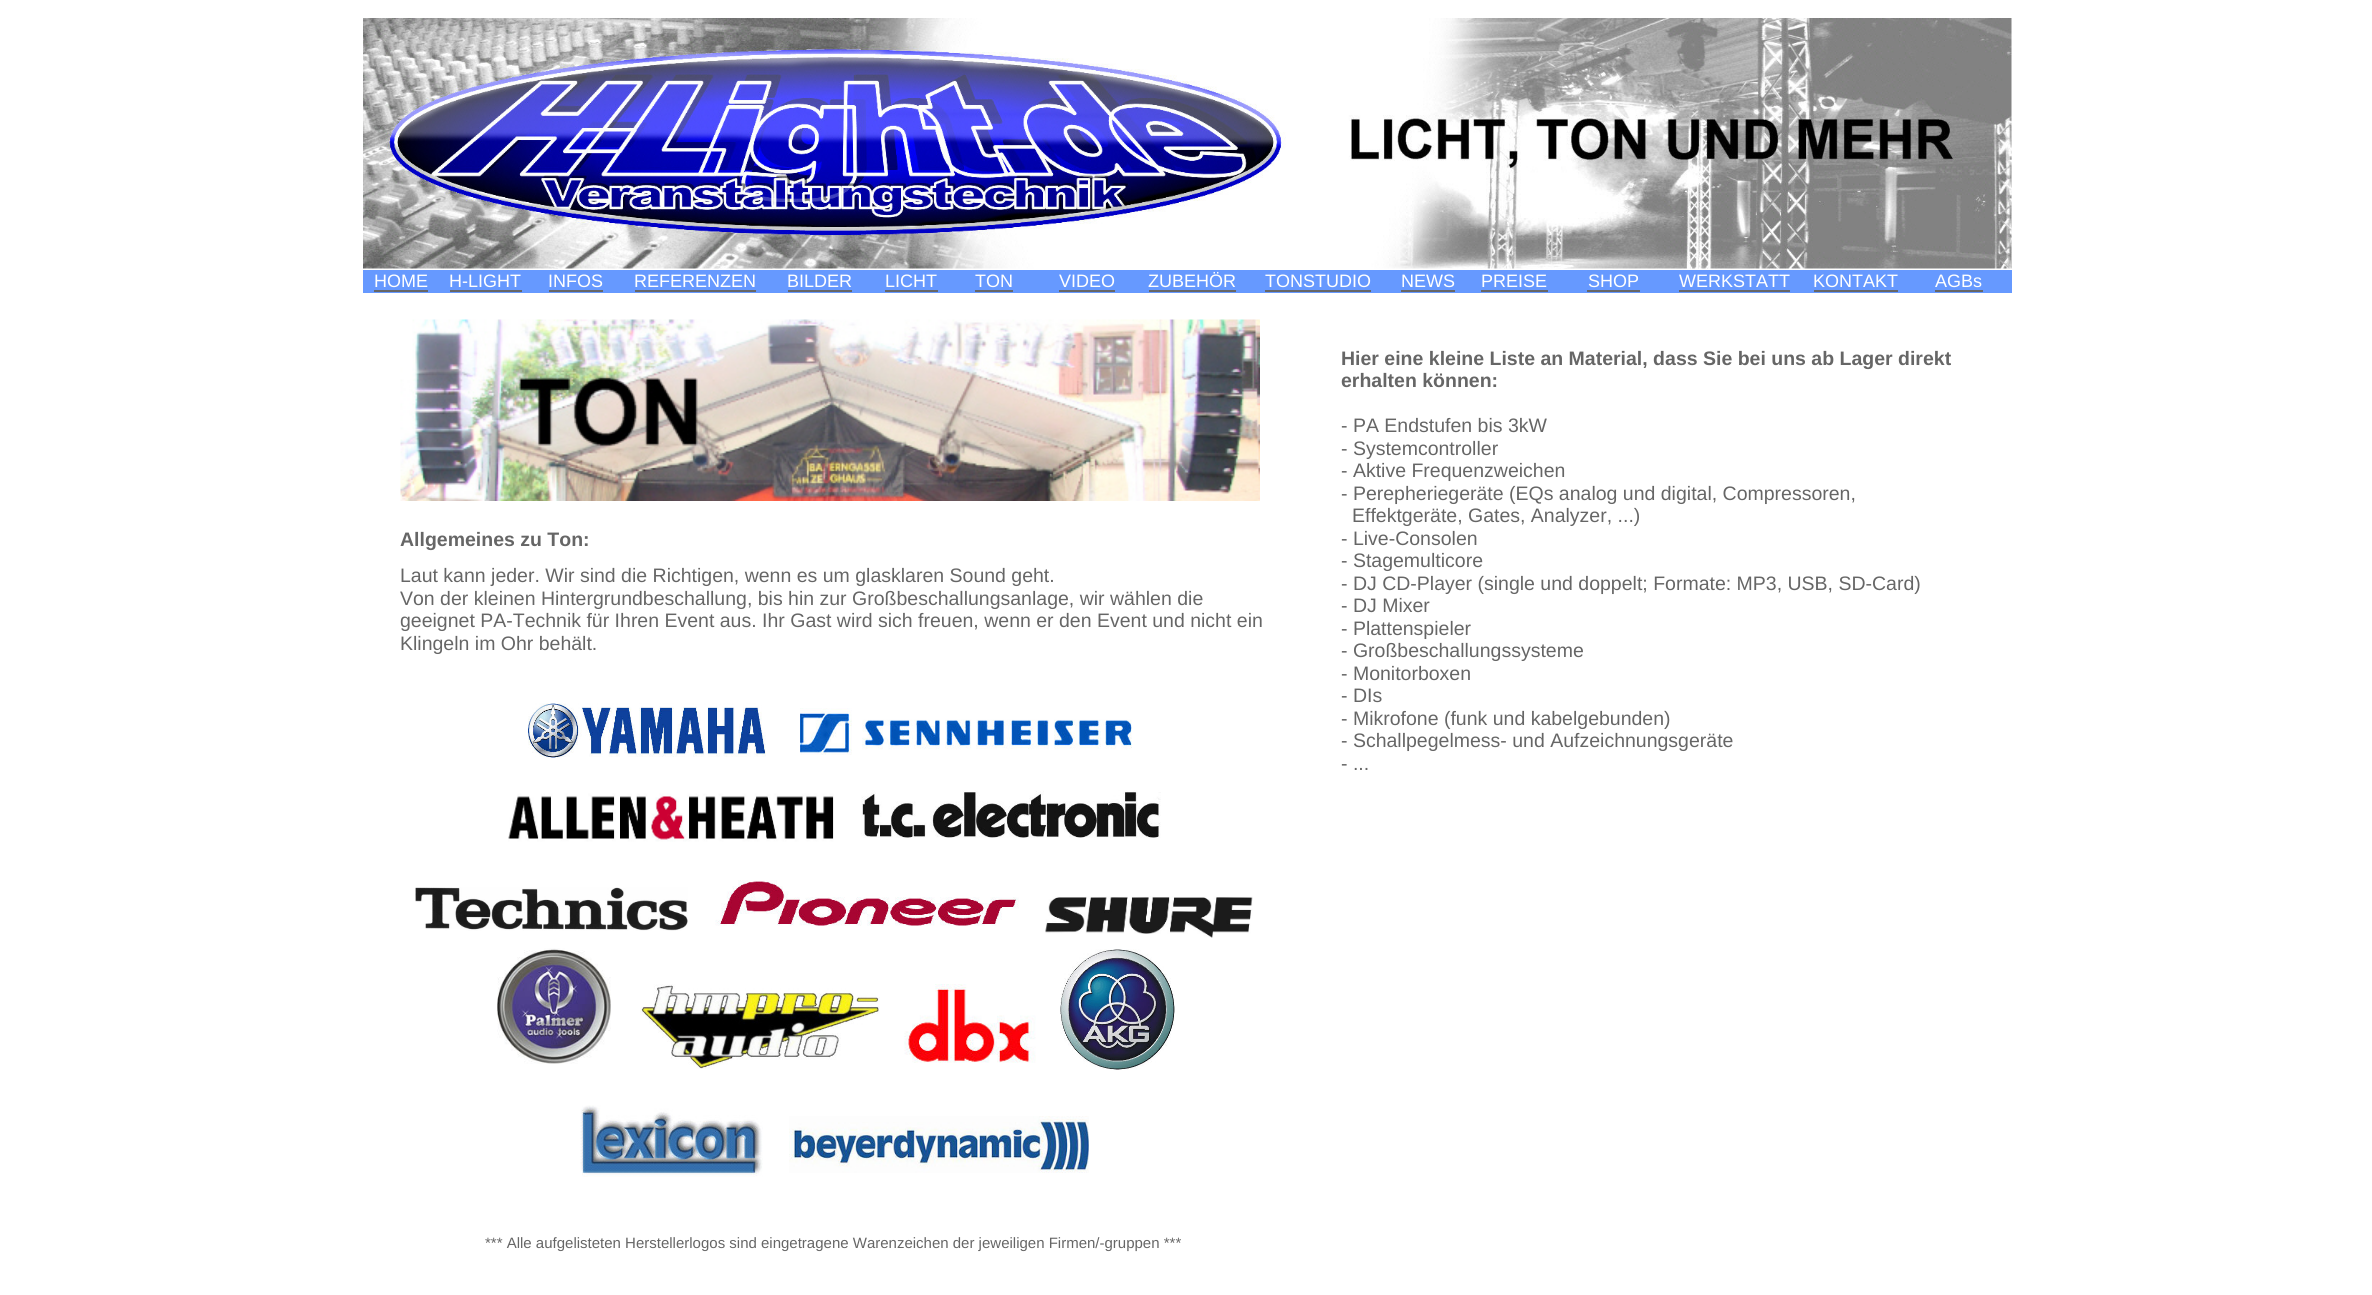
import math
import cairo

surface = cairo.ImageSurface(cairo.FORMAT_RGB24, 2372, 1295)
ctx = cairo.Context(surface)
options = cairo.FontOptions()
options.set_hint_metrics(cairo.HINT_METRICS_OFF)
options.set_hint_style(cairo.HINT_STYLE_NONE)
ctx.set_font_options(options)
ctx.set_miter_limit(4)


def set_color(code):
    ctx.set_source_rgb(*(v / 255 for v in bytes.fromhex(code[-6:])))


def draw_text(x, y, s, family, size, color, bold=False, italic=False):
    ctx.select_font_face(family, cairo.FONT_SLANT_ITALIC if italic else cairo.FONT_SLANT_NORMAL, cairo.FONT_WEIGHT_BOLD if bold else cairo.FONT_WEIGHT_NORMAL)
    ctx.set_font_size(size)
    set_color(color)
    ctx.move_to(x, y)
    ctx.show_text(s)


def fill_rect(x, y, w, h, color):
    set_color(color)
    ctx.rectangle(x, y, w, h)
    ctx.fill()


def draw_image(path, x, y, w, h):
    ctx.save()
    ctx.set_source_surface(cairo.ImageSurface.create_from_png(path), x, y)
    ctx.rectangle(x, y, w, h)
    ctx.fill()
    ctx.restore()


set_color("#ffffff")
ctx.paint()
draw_image("assets/img1.png", 363, 18, 1649, 251)
fill_rect(363, 270, 1649, 23, "#6699ff")
draw_text(374, 287, "HOME", "Liberation Sans", 18, "#ffffff")
fill_rect(374, 290, 54, 2, "#666666")
draw_text(449, 287, "H-LIGHT", "Liberation Sans", 18, "#ffffff")
fill_rect(450, 290, 72, 2, "#666666")
draw_text(548, 287, "INFOS", "Liberation Sans", 18, "#ffffff")
fill_rect(549, 290, 54, 2, "#666666")
draw_text(634, 287, "REFERENZEN", "Liberation Sans", 18, "#ffffff")
fill_rect(635, 290, 121, 2, "#666666")
draw_text(787, 287, "BILDER", "Liberation Sans", 18, "#ffffff")
fill_rect(788, 290, 64, 2, "#666666")
draw_text(885, 287, "LICHT", "Liberation Sans", 18, "#ffffff")
fill_rect(885, 290, 53, 2, "#666666")
draw_text(975, 287, "TON", "Liberation Sans", 18, "#ffffff")
fill_rect(975, 290, 38, 2, "#666666")
draw_text(1059, 287, "VIDEO", "Liberation Sans", 18, "#ffffff")
fill_rect(1059, 290, 56, 2, "#666666")
draw_text(1148, 287, "ZUBEHÖR", "Liberation Sans", 18, "#ffffff")
fill_rect(1149, 290, 87, 2, "#666666")
draw_text(1265, 287, "TONSTUDIO", "Liberation Sans", 18, "#ffffff")
fill_rect(1265, 290, 106, 2, "#666666")
draw_text(1401, 287, "NEWS", "Liberation Sans", 18, "#ffffff")
fill_rect(1401, 290, 54, 2, "#666666")
draw_text(1481, 287, "PREISE", "Liberation Sans", 18, "#ffffff")
fill_rect(1481, 290, 67, 2, "#666666")
draw_text(1588, 287, "SHOP", "Liberation Sans", 18, "#ffffff")
fill_rect(1587, 290, 53, 2, "#666666")
draw_text(1679, 287, "WERKSTATT", "Liberation Sans", 18, "#ffffff")
fill_rect(1679, 290, 111, 2, "#666666")
draw_text(1813, 287, "KONTAKT", "Liberation Sans", 18, "#ffffff")
fill_rect(1814, 290, 84, 2, "#666666")
draw_text(1935, 287, "AGBs", "Liberation Sans", 18, "#ffffff")
fill_rect(1935, 290, 48, 2, "#666666")
draw_image("assets/img2.png", 400, 319, 860, 182)
draw_text(400, 546, "Allgemeines zu Ton:", "Liberation Sans", 19.5, "#666666", bold=True)
draw_text(400, 582, "Laut kann jeder. Wir sind die Richtigen, wenn es um glasklaren Sound geht.", "Liberation Sans", 19.5, "#666666")
draw_text(400, 605, "Von der kleinen Hintergrundbeschallung, bis hin zur Großbeschallungsanlage, wir wählen die", "Liberation Sans", 19.5, "#666666")
draw_text(400, 627, "geeignet PA-Technik für Ihren Event aus. Ihr Gast wird sich freuen, wenn er den Event und nicht ein", "Liberation Sans", 19.5, "#666666")
draw_text(400, 650, "Klingeln im Ohr behält.", "Liberation Sans", 19.5, "#666666")
draw_image("assets/img3.png", 528, 703, 238, 55)
draw_image("assets/img4.png", 800, 708, 332, 47)
draw_image("assets/img5.png", 508, 793, 326, 49)
draw_image("assets/img6.png", 861, 790, 300, 48)
draw_image("assets/img7.png", 415, 887, 273, 44)
draw_image("assets/img8.png", 715, 880, 304, 46)
draw_image("assets/img9.png", 1045, 896, 208, 42)
draw_image("assets/img10.png", 497, 948, 114, 116)
draw_image("assets/img11.png", 640, 984, 240, 85)
draw_image("assets/img12.png", 904, 984, 132, 79)
draw_image("assets/img13.png", 1060, 949, 115, 121)
draw_image("assets/img14.png", 580, 1105, 183, 72)
draw_image("assets/img15.png", 789, 1116, 300, 57)
draw_text(485, 1248, "*** Alle aufgelisteten Herstellerlogos sind eingetragene Warenzeichen der jeweiligen Firmen/-gruppen ***", "Liberation Sans", 15, "#666666")
draw_text(1341, 365, "Hier eine kleine Liste an Material, dass Sie bei uns ab Lager direkt", "Liberation Sans", 19.5, "#666666", bold=True)
draw_text(1341, 387, "erhalten können:", "Liberation Sans", 19.5, "#666666", bold=True)
draw_text(1341, 432, "- PA Endstufen bis 3kW", "Liberation Sans", 19.5, "#666666")
draw_text(1341, 455, "- Systemcontroller", "Liberation Sans", 19.5, "#666666")
draw_text(1341, 477, "- Aktive Frequenzweichen", "Liberation Sans", 19.5, "#666666")
draw_text(1341, 500, "- Perepheriegeräte (EQs analog und digital, Compressoren,", "Liberation Sans", 19.5, "#666666")
draw_text(1352, 522, "Effektgeräte, Gates, Analyzer, ...)", "Liberation Sans", 19.5, "#666666")
draw_text(1341, 545, "- Live-Consolen", "Liberation Sans", 19.5, "#666666")
draw_text(1341, 567, "- Stagemulticore", "Liberation Sans", 19.5, "#666666")
draw_text(1341, 590, "- DJ CD-Player (single und doppelt; Formate: MP3, USB, SD-Card)", "Liberation Sans", 19.5, "#666666")
draw_text(1341, 612, "- DJ Mixer", "Liberation Sans", 19.5, "#666666")
draw_text(1341, 635, "- Plattenspieler", "Liberation Sans", 19.5, "#666666")
draw_text(1341, 657, "- Großbeschallungssysteme", "Liberation Sans", 19.5, "#666666")
draw_text(1341, 680, "- Monitorboxen", "Liberation Sans", 19.5, "#666666")
draw_text(1341, 702, "- DIs", "Liberation Sans", 19.5, "#666666")
draw_text(1341, 725, "- Mikrofone (funk und kabelgebunden)", "Liberation Sans", 19.5, "#666666")
draw_text(1341, 747, "- Schallpegelmess- und Aufzeichnungsgeräte", "Liberation Sans", 19.5, "#666666")
draw_text(1341, 770, "- ...", "Liberation Sans", 19.5, "#666666")
surface.write_to_png("output.png")
